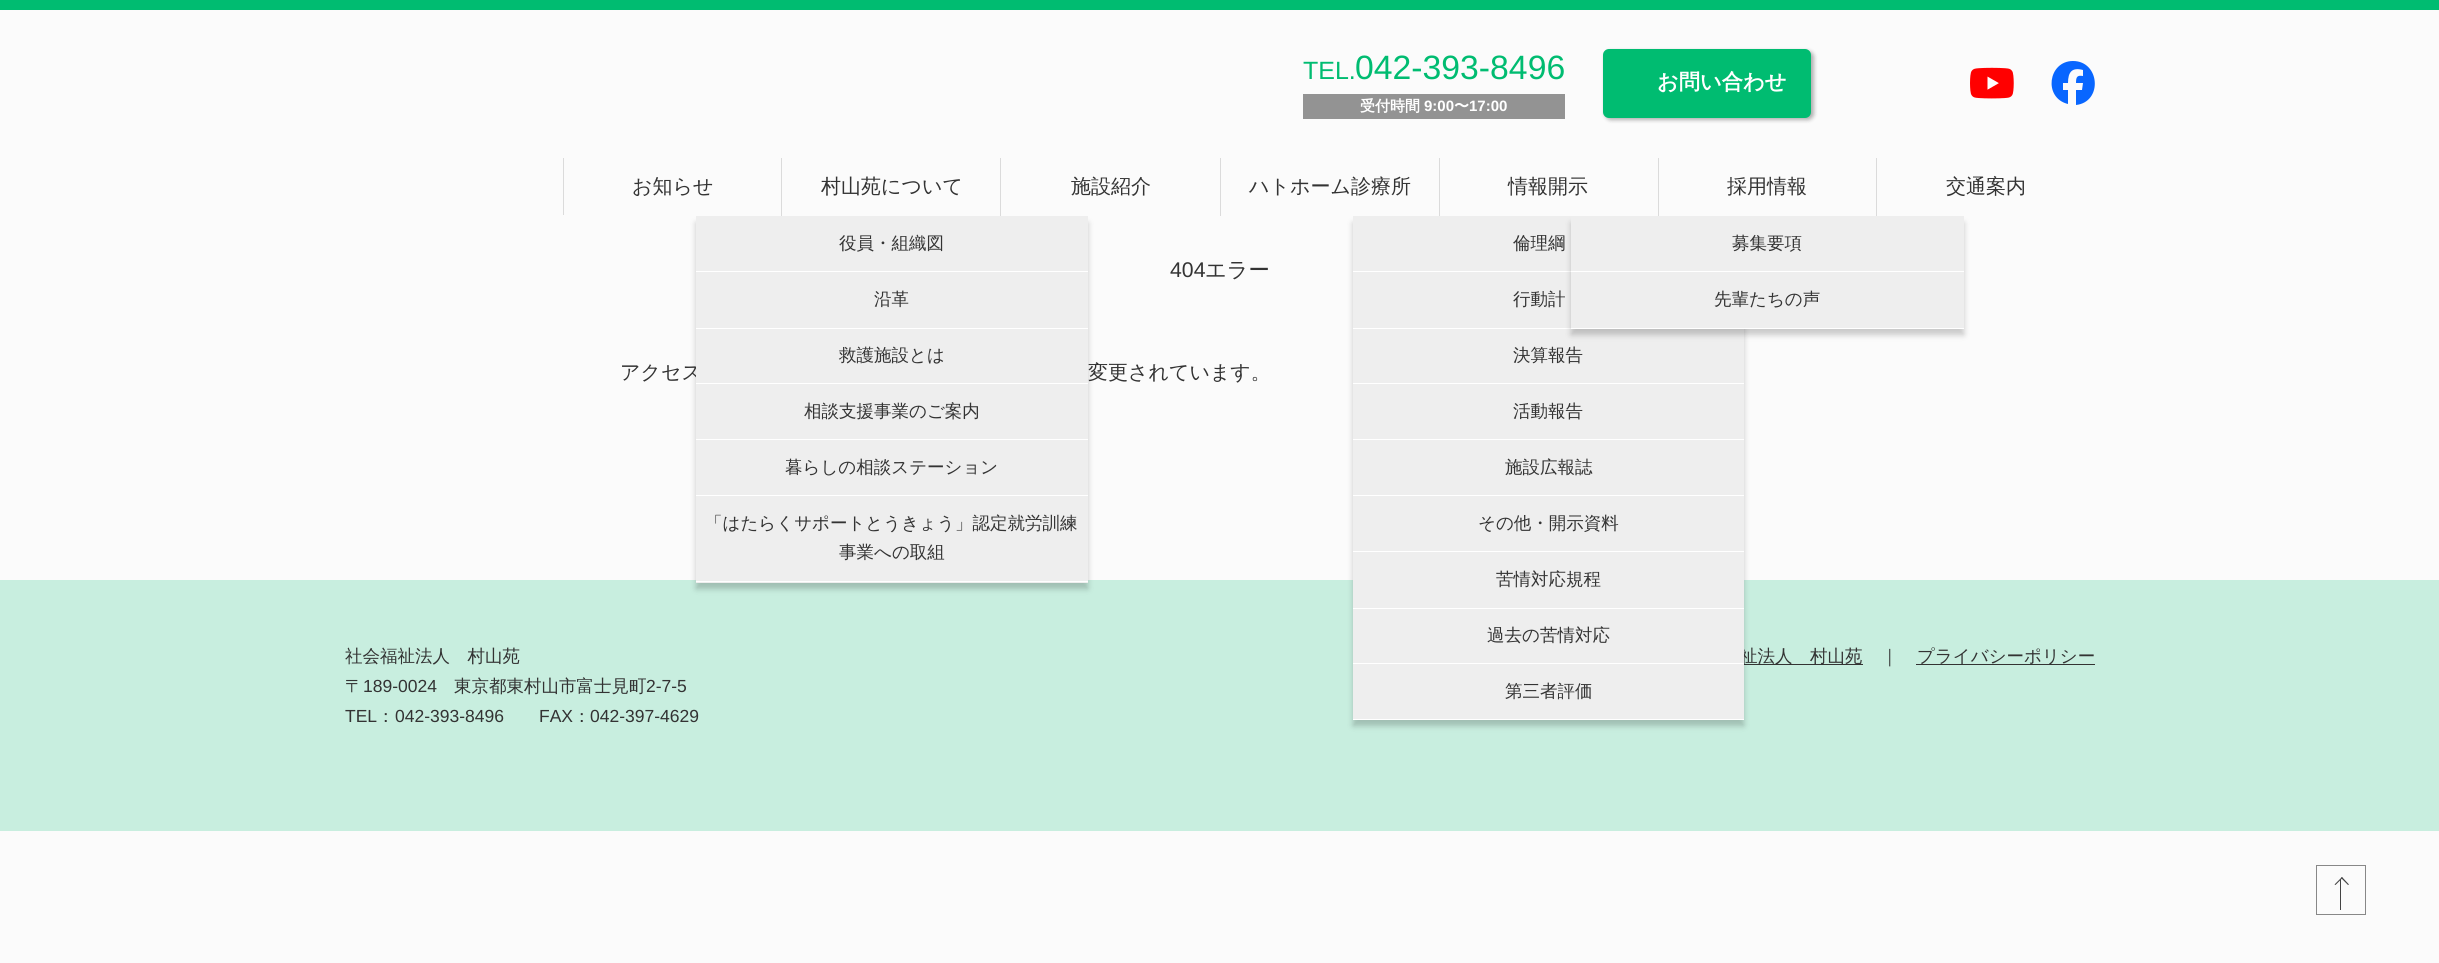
import math
import cairo

surface = cairo.ImageSurface(cairo.FORMAT_RGB24, 2439, 963)
ctx = cairo.Context(surface)
options = cairo.FontOptions()
options.set_hint_metrics(cairo.HINT_METRICS_OFF)
options.set_hint_style(cairo.HINT_STYLE_NONE)
ctx.set_font_options(options)
ctx.set_miter_limit(4)


def set_color(code):
    ctx.set_source_rgb(*(v / 255 for v in bytes.fromhex(code[-6:])))


def draw_text(x, y, s, family, size, color, bold=False, italic=False):
    ctx.select_font_face(family, cairo.FONT_SLANT_ITALIC if italic else cairo.FONT_SLANT_NORMAL, cairo.FONT_WEIGHT_BOLD if bold else cairo.FONT_WEIGHT_NORMAL)
    ctx.set_font_size(size)
    set_color(color)
    ctx.move_to(x, y)
    ctx.show_text(s)


def fill_rect(x, y, w, h, color):
    set_color(color)
    ctx.rectangle(x, y, w, h)
    ctx.fill()


def rounded_rect(x, y, w, h, r):
    ctx.new_sub_path()
    for i, (u, v) in enumerate([(x + w - r, y + h - r), (x + r, y + h - r), (x + r, y + r), (x + w - r, y + r)]):
        ctx.arc(u, v, r, i * math.pi / 2, (i + 1) * math.pi / 2)
    ctx.close_path()


def draw_shadow(x, y, w, h, r, blur, alpha):
    ctx.push_group_with_content(cairo.CONTENT_ALPHA)
    ctx.set_operator(cairo.OPERATOR_SOURCE)
    for i in range(15, -16, -2):
        e = blur * i / 6
        if min(w, h) + 2 * e > 0:
            ctx.set_source_rgba(0, 0, 0, alpha * math.erfc((i - 1) / 8.5) / 2)
            rounded_rect(x - e, y - e, w + 2 * e, h + 2 * e, max(0, min(r + e + blur * .6, min(w, h) / 2 + e)))
            ctx.fill()
    ctx.mask(ctx.pop_group())


def draw_image(path, x, y, w, h):
    ctx.save()
    ctx.set_source_surface(cairo.ImageSurface.create_from_png(path), x, y)
    ctx.rectangle(x, y, w, h)
    ctx.fill()
    ctx.restore()


set_color("#fbfbfb")
ctx.paint()
fill_rect(0, 0, 2439, 10, "#00bc71")
draw_text(1303, 79, "TEL.", "Liberation Sans", 25, "#00bc71")
draw_text(1355, 79, "042-393-8496", "Liberation Sans", 33.75, "#00bc71")
fill_rect(1303, 94, 262, 25, "#939393")
draw_text(1360, 111, "受付時間", "WenQuanYi Zen Hei", 15, "#ffffff", bold=True)
draw_text(1424, 111, "9:00", "Liberation Sans", 15, "#ffffff", bold=True)
draw_text(1454, 111, "〜", "WenQuanYi Zen Hei", 15, "#ffffff", bold=True)
draw_text(1469, 111, "17:00", "Liberation Sans", 15, "#ffffff", bold=True)
set_color("#000000")
draw_shadow(1605, 51, 209, 69, 6, 2, 0.3)
set_color("#00bc71")
rounded_rect(1603, 49, 208, 69, 6)
ctx.fill()
draw_text(1657, 89, "お問い合わせ", "WenQuanYi Zen Hei", 21.25, "#ffffff", bold=True)
draw_image("assets/img1.png", 1970, 67, 44, 32)
set_color("#0866ff")
ctx.new_path()
ctx.move_to(2073, 61)
ctx.curve_to(2048, 61, 2043, 98, 2068, 104)
ctx.line_to(2068, 90)
ctx.line_to(2063, 90)
ctx.line_to(2063, 83)
ctx.line_to(2068, 83)
ctx.curve_to(2068, 72, 2072, 67, 2083, 70)
ctx.line_to(2083, 76)
ctx.curve_to(2077, 75, 2076, 77, 2076, 83)
ctx.line_to(2083, 83)
ctx.line_to(2082, 90)
ctx.line_to(2076, 90)
ctx.line_to(2076, 105)
ctx.curve_to(2103, 102, 2100, 61, 2073, 61)
ctx.close_path()
ctx.fill()
fill_rect(563, 158, 1, 57, "#dbdbdb")
fill_rect(781, 158, 1, 58, "#dbdbdb")
draw_text(632, 193, "お知らせ", "WenQuanYi Zen Hei Medium", 20, "#333333")
fill_rect(1000, 158, 1, 58, "#dbdbdb")
draw_text(821, 193, "村山苑について", "WenQuanYi Zen Hei Medium", 20, "#333333")
fill_rect(0, 580, 2439, 251, "#c8eedf")
set_color("#000000")
draw_shadow(696, 223, 392, 366, 0, 3, 0.2)
fill_rect(696, 216, 392, 112, "#eeeeee")
fill_rect(696, 271, 392, 1, "#ffffff")
draw_text(839, 249, "役員・組織図", "WenQuanYi Zen Hei Medium", 17.5, "#333333")
fill_rect(696, 328, 392, 1, "#ffffff")
draw_text(874, 305, "沿革", "WenQuanYi Zen Hei Medium", 17.5, "#333333")
draw_text(620, 379, "アクセス", "WenQuanYi Zen Hei Medium", 20, "#333333")
fill_rect(696, 329, 392, 54, "#eeeeee")
fill_rect(696, 383, 392, 1, "#ffffff")
draw_text(839, 361, "救護施設とは", "WenQuanYi Zen Hei Medium", 17.5, "#333333")
fill_rect(696, 384, 392, 55, "#eeeeee")
fill_rect(696, 439, 392, 1, "#ffffff")
draw_text(804, 417, "相談支援事業のご案内", "WenQuanYi Zen Hei Medium", 17.5, "#333333")
fill_rect(696, 440, 392, 55, "#eeeeee")
fill_rect(696, 495, 392, 1, "#ffffff")
draw_text(785, 473, "暮らしの相談ステーション", "WenQuanYi Zen Hei Medium", 17.5, "#333333")
fill_rect(696, 496, 392, 87, "#eeeeee")
fill_rect(696, 581, 392, 1, "#ffffff")
draw_text(705, 529, "「はたらくサポートとうきょう」認定就労訓練", "WenQuanYi Zen Hei Medium", 17.5, "#333333")
draw_text(839, 558, "事業への取組", "WenQuanYi Zen Hei Medium", 17.5, "#333333")
fill_rect(1220, 158, 1, 58, "#dbdbdb")
draw_text(1071, 193, "施設紹介", "WenQuanYi Zen Hei Medium", 20, "#333333")
fill_rect(1439, 158, 1, 58, "#dbdbdb")
draw_text(1249, 193, "ハトホーム診療所", "WenQuanYi Zen Hei Medium", 20, "#333333")
fill_rect(1658, 158, 1, 58, "#dbdbdb")
draw_text(1508, 193, "情報開示", "WenQuanYi Zen Hei Medium", 20, "#333333")
fill_rect(1744, 664, 119, 1, "#333333")
set_color("#000000")
draw_shadow(1353, 223, 391, 503, 0, 3, 0.2)
fill_rect(1353, 216, 218, 112, "#eeeeee")
fill_rect(1353, 271, 218, 1, "#ffffff")
draw_text(1513, 249, "倫理綱", "WenQuanYi Zen Hei Medium", 17.5, "#333333")
fill_rect(1353, 328, 218, 1, "#ffffff")
draw_text(1513, 305, "行動計", "WenQuanYi Zen Hei Medium", 17.5, "#333333")
fill_rect(1353, 329, 391, 54, "#eeeeee")
fill_rect(1353, 383, 391, 1, "#ffffff")
draw_text(1513, 361, "決算報告", "WenQuanYi Zen Hei Medium", 17.5, "#333333")
fill_rect(1353, 384, 391, 55, "#eeeeee")
fill_rect(1353, 439, 391, 1, "#ffffff")
draw_text(1513, 417, "活動報告", "WenQuanYi Zen Hei Medium", 17.5, "#333333")
fill_rect(1353, 440, 391, 55, "#eeeeee")
fill_rect(1353, 495, 391, 1, "#ffffff")
draw_text(1505, 473, "施設広報誌", "WenQuanYi Zen Hei Medium", 17.5, "#333333")
fill_rect(1353, 496, 391, 112, "#eeeeee")
fill_rect(1353, 551, 391, 1, "#ffffff")
draw_text(1478, 529, "その他・開示資料", "WenQuanYi Zen Hei Medium", 17.5, "#333333")
fill_rect(1353, 608, 391, 1, "#ffffff")
draw_text(1496, 585, "苦情対応規程", "WenQuanYi Zen Hei Medium", 17.5, "#333333")
draw_text(1740, 662, "祉法人　村山苑", "WenQuanYi Zen Hei Medium", 17.5, "#333333")
fill_rect(1353, 609, 391, 54, "#eeeeee")
fill_rect(1353, 663, 391, 1, "#ffffff")
draw_text(1487, 641, "過去の苦情対応", "WenQuanYi Zen Hei Medium", 17.5, "#333333")
fill_rect(1353, 664, 391, 55, "#eeeeee")
fill_rect(1353, 719, 391, 1, "#ffffff")
draw_text(1505, 697, "第三者評価", "WenQuanYi Zen Hei Medium", 17.5, "#333333")
fill_rect(1876, 158, 1, 58, "#dbdbdb")
draw_text(1727, 193, "採用情報", "WenQuanYi Zen Hei Medium", 20, "#333333")
set_color("#000000")
draw_shadow(1571, 223, 393, 112, 0, 3, 0.2)
fill_rect(1571, 216, 393, 112, "#eeeeee")
fill_rect(1571, 271, 393, 1, "#ffffff")
draw_text(1732, 249, "募集要項", "WenQuanYi Zen Hei Medium", 17.5, "#333333")
fill_rect(1571, 328, 393, 1, "#ffffff")
draw_text(1714, 305, "先輩たちの声", "WenQuanYi Zen Hei Medium", 17.5, "#333333")
draw_text(1946, 193, "交通案内", "WenQuanYi Zen Hei Medium", 20, "#333333")
draw_text(1170, 277, "404", "Liberation Sans", 21.25, "#333333")
draw_text(1205, 277, "エラー", "WenQuanYi Zen Hei Medium", 21.25, "#333333")
draw_text(1088, 379, "変更されています。", "WenQuanYi Zen Hei Medium", 20, "#333333")
draw_text(345, 662, "社会福祉法人　村山苑", "WenQuanYi Zen Hei Medium", 17.5, "#333333")
draw_text(345, 692, "〒", "WenQuanYi Zen Hei Medium", 17.5, "#333333")
draw_text(363, 692, "189-0024", "Liberation Sans", 17.5, "#333333")
draw_text(454, 692, "東京都東村山市富士見町", "WenQuanYi Zen Hei Medium", 17.5, "#333333")
draw_text(646, 692, "2-7-5", "Liberation Sans", 17.5, "#333333")
draw_text(345, 722, "TEL", "Liberation Sans", 17.5, "#333333")
draw_text(377, 722, "：", "WenQuanYi Zen Hei Medium", 17.5, "#333333")
draw_text(395, 722, "042-393-8496", "Liberation Sans", 17.5, "#333333")
draw_text(539, 722, "FAX", "Liberation Sans", 17.5, "#333333")
draw_text(573, 722, "：", "WenQuanYi Zen Hei Medium", 17.5, "#333333")
draw_text(590, 722, "042-397-4629", "Liberation Sans", 17.5, "#333333")
draw_text(1881, 662, "｜", "WenQuanYi Zen Hei Medium", 17.5, "#333333")
fill_rect(1916, 664, 179, 1, "#333333")
draw_text(1917, 662, "プライバシーポリシー", "WenQuanYi Zen Hei Medium", 17.5, "#333333")
ctx.rectangle(2316.5, 865.5, 49, 49)
set_color("#888888")
ctx.set_line_width(1)
ctx.stroke()
fill_rect(2340, 879, 1, 31, "#444444")
ctx.new_path()
ctx.move_to(2334.5, 884.5)
ctx.line_to(2342, 877)
ctx.line_to(2342.5, 878)
ctx.line_to(2335.5, 885)
ctx.close_path()
ctx.fill()
ctx.new_path()
ctx.move_to(2341, 878)
ctx.line_to(2342, 877)
ctx.line_to(2349, 884.5)
ctx.line_to(2348, 885)
ctx.close_path()
ctx.fill()
surface.write_to_png("output.png")
